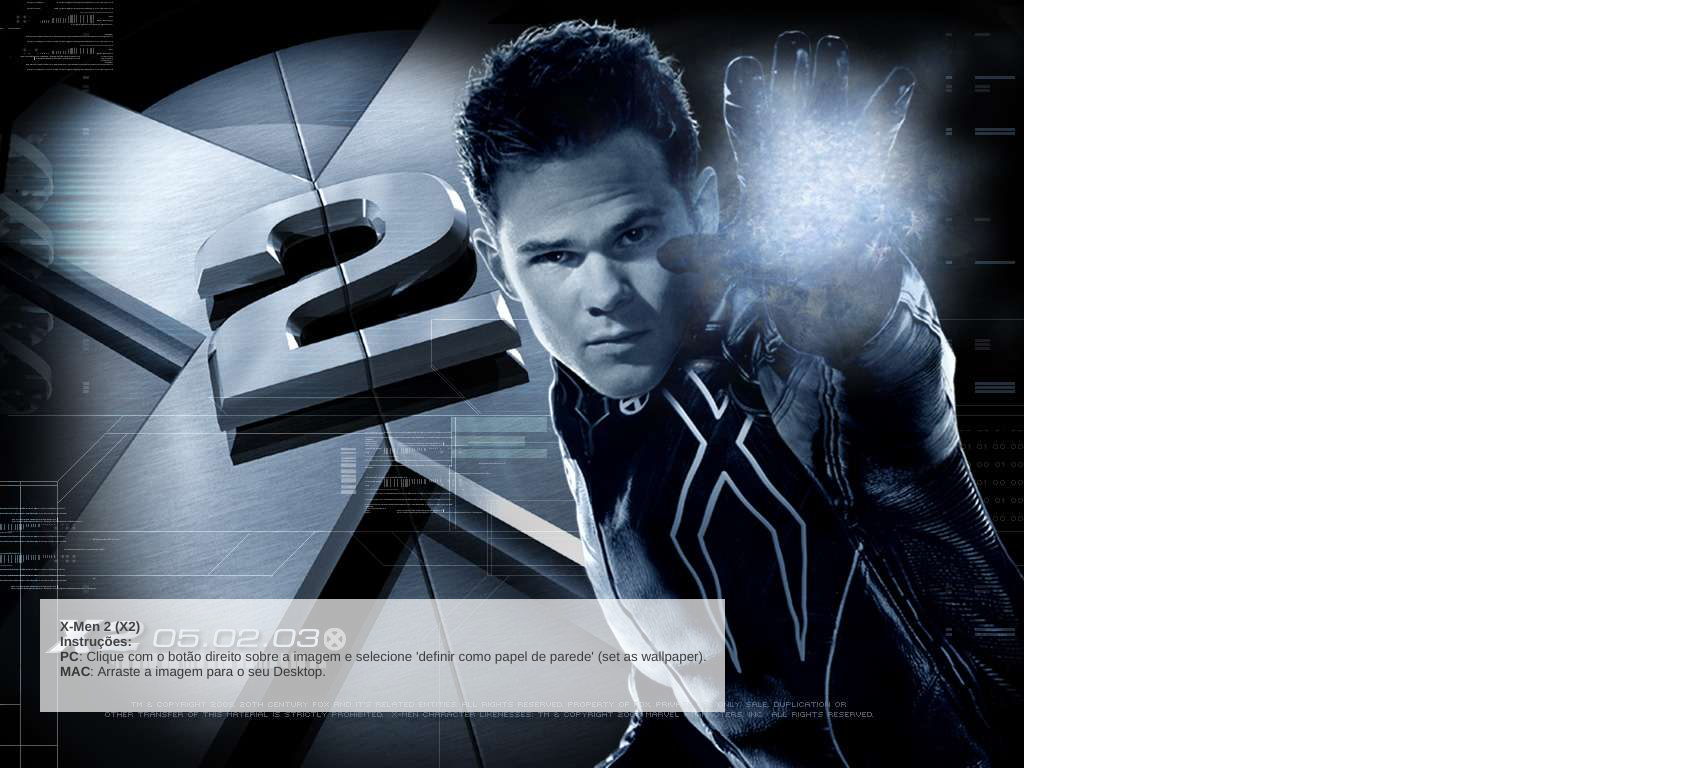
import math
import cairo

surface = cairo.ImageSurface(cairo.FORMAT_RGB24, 1683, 772)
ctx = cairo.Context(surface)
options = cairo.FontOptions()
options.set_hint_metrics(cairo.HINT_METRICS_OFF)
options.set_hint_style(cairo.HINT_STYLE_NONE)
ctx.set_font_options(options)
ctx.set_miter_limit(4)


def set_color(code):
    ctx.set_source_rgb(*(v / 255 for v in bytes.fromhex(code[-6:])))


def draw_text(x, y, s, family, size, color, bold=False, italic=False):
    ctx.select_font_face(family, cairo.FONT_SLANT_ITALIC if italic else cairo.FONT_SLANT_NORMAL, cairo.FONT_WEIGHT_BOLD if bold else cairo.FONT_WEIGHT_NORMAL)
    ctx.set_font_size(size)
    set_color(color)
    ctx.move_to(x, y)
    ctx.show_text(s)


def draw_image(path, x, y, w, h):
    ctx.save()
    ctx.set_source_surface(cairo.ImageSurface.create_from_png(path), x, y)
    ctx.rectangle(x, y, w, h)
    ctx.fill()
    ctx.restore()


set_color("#ffffff")
ctx.paint()
draw_image("assets/img1.png", 0, 0, 1024, 768)
ctx.set_source_rgba(1, 1, 1, 0.7)
ctx.rectangle(40, 599, 685, 113)
ctx.fill()
draw_text(60, 631, "X-Men 2 (X2)", "Liberation Sans", 13.35, "#424243", bold=True)
draw_text(60, 646, "Instruções:", "Liberation Sans", 13.35, "#424243", bold=True)
draw_text(60, 661, "PC", "Liberation Sans", 13.35, "#373838", bold=True)
draw_text(79, 661, ": Clique com o botão direito sobre a imagem e selecione 'definir como papel de parede' (set as wallpaper).", "Liberation Sans", 13.35, "#3c3d3f")
draw_text(60, 676, "MAC", "Liberation Sans", 13.35, "#373838", bold=True)
draw_text(90, 676, ": Arraste a imagem para o seu Desktop.", "Liberation Sans", 13.35, "#373838")
surface.write_to_png("output.png")
